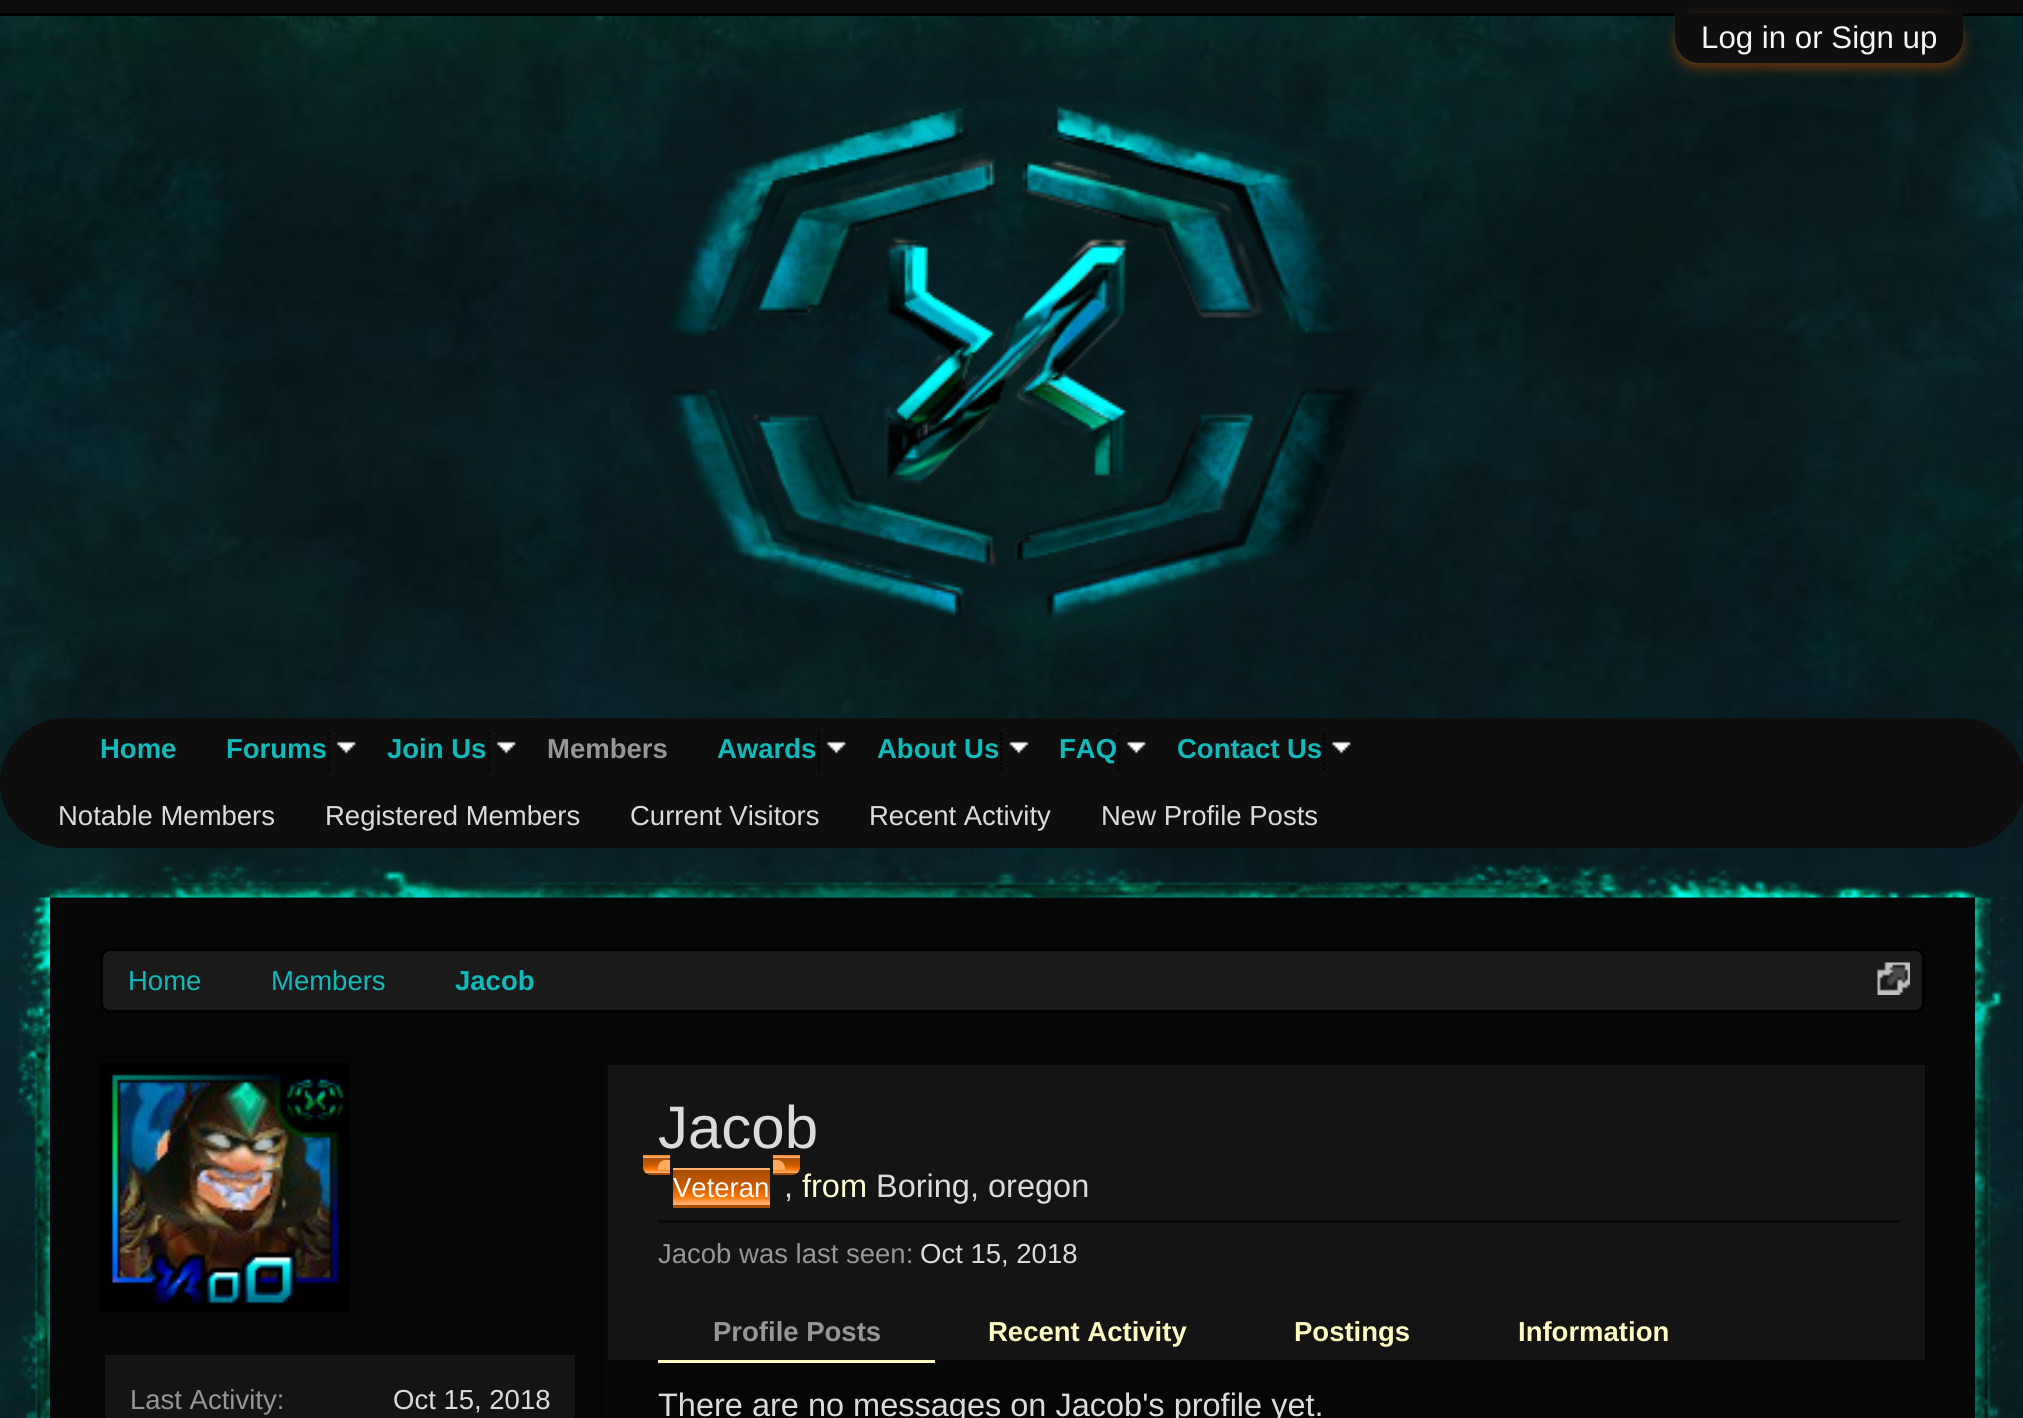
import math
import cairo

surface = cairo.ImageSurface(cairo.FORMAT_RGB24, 2023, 1418)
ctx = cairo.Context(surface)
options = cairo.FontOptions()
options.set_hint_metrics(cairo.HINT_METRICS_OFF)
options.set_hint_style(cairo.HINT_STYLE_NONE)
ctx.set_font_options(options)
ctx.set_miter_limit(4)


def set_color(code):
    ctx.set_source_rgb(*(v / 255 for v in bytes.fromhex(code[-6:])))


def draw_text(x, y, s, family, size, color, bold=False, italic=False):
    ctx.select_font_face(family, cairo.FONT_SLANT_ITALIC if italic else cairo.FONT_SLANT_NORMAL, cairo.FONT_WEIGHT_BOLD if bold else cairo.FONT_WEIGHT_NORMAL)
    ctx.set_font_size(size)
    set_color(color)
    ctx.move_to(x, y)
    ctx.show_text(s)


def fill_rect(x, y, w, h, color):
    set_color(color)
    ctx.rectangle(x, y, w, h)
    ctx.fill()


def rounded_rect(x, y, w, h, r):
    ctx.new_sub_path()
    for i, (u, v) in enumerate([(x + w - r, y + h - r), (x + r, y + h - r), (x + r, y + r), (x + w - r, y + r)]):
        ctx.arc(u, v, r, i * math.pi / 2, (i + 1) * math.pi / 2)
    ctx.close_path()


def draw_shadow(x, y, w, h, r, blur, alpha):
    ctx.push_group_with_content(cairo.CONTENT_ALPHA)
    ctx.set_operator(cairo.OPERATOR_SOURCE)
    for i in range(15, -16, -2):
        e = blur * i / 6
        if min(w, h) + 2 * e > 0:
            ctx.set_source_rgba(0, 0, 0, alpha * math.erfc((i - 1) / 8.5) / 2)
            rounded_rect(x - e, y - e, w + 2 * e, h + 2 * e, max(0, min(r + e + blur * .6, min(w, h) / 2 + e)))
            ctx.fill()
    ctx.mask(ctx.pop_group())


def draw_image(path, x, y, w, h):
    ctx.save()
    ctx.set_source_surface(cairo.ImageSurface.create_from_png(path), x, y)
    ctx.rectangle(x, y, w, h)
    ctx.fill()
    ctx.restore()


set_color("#ffffff")
ctx.paint()
draw_image("assets/img1.png", 0, 16, 2023, 1402)
fill_rect(0, 0, 2023, 13, "#0e0e0e")
fill_rect(0, 13, 2023, 3, "#000000")
set_color("#6a360b")
draw_shadow(1675, 18, 288, 50, 25, 6, 1)
set_color("#0e0e0e")
ctx.new_path()
ctx.move_to(1675, 13)
ctx.line_to(1963, 13)
ctx.line_to(1963, 38)
ctx.curve_to(1963, 52, 1952, 63, 1938, 63)
ctx.line_to(1700, 63)
ctx.curve_to(1686, 63, 1675, 52, 1675, 38)
ctx.close_path()
ctx.fill()
draw_text(1701, 48, "Log in or Sign up", "Liberation Sans", 31.25, "#f6f6f6")
draw_image("assets/img2.png", 561, 47, 862, 646)
set_color("#0e0e0e")
rounded_rect(0, 718, 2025, 130, 65)
ctx.fill()
draw_text(547, 758, "Members", "Liberation Sans", 27.5, "#969696", bold=True)
draw_text(58, 825, "Notable Members", "Liberation Sans", 27.5, "#dbdbdb")
draw_text(325, 825, "Registered Members", "Liberation Sans", 27.5, "#dbdbdb")
draw_text(630, 825, "Current Visitors", "Liberation Sans", 27.5, "#dbdbdb")
draw_text(869, 825, "Recent Activity", "Liberation Sans", 27.5, "#dbdbdb")
draw_text(1101, 825, "New Profile Posts", "Liberation Sans", 27.5, "#dbdbdb")
draw_text(100, 758, "Home", "Liberation Sans", 27.5, "#10baba", bold=True)
draw_text(226, 758, "Forums", "Liberation Sans", 27.5, "#10baba", bold=True)
draw_image("assets/img3.png", 327, 732, 29, 39)
draw_text(387, 758, "Join Us", "Liberation Sans", 27.5, "#10baba", bold=True)
draw_image("assets/img4.png", 487, 732, 29, 39)
draw_text(717, 758, "Awards", "Liberation Sans", 27.5, "#10baba", bold=True)
draw_image("assets/img5.png", 817, 732, 29, 39)
draw_text(877, 758, "About Us", "Liberation Sans", 27.5, "#10baba", bold=True)
draw_image("assets/img6.png", 1000, 732, 29, 39)
draw_text(1059, 758, "FAQ", "Liberation Sans", 27.5, "#10baba", bold=True)
draw_image("assets/img5.png", 1117, 732, 29, 39)
draw_text(1177, 758, "Contact Us", "Liberation Sans", 27.5, "#10baba", bold=True)
draw_image("assets/img5.png", 1322, 732, 29, 39)
draw_image("assets/img7.png", 17, 863, 1992, 555)
fill_rect(50, 898, 1925, 520, "#050707")
set_color("#1a1a1a")
rounded_rect(101.5, 949.5, 1822, 62, 8.5)
ctx.fill_preserve()
set_color("#000000")
ctx.set_line_width(3)
ctx.stroke()
draw_text(128, 990, "Home", "Liberation Sans", 27.5, "#10baba")
draw_text(271, 990, "Members", "Liberation Sans", 27.5, "#10baba")
draw_text(455, 990, "Jacob", "Liberation Sans", 27.5, "#10baba", bold=True)
draw_image("assets/img8.png", 1877, 962, 33, 33)
draw_image("assets/img9.png", 100, 1063, 250, 249)
fill_rect(105, 1355, 470, 63, "#141414")
draw_text(130, 1409, "Last Activity:", "Liberation Sans", 27.5, "#969696")
draw_text(393, 1409, "Oct 15, 2018", "Liberation Sans", 27.5, "#dbdbdb")
fill_rect(605, 1063, 3, 355, "#07080a")
fill_rect(608, 1063, 1317, 2, "#07080a")
fill_rect(608, 1065, 1317, 295, "#141414")
draw_text(658, 1148, "Jacob", "Liberation Sans", 60, "#dbdbdb")
gradient = cairo.LinearGradient(658, 1143, 658, 1158)
gradient.add_color_stop_rgba(0, 0.651, 0.294, 0, 1)
gradient.add_color_stop_rgba(0.5, 0.8, 0.361, 0, 1)
gradient.add_color_stop_rgba(0.75, 1, 0.451, 0, 1)
gradient.add_color_stop_rgba(1, 1, 0.722, 0.498, 1)
ctx.set_source(gradient)
ctx.rectangle(643, 1155, 27, 3)
ctx.fill()
ctx.save()
ctx.new_path()
ctx.move_to(643, 1155)
ctx.line_to(670, 1155)
ctx.line_to(670, 1175)
ctx.line_to(651, 1175)
ctx.curve_to(646.5, 1175, 643, 1171.5, 643, 1167)
ctx.close_path()
ctx.clip()
gradient = cairo.LinearGradient(658, 1158, 658, 1173)
gradient.add_color_stop_rgba(0, 0.651, 0.294, 0, 1)
gradient.add_color_stop_rgba(0.5, 0.8, 0.361, 0, 1)
gradient.add_color_stop_rgba(0.75, 1, 0.451, 0, 1)
gradient.add_color_stop_rgba(1, 1, 0.722, 0.498, 1)
ctx.set_source(gradient)
ctx.rectangle(643, 1158, 27, 15)
ctx.fill()
gradient = cairo.LinearGradient(658, 1173, 658, 1188)
gradient.add_color_stop_rgba(0, 0.651, 0.294, 0, 1)
gradient.add_color_stop_rgba(0.5, 0.8, 0.361, 0, 1)
gradient.add_color_stop_rgba(0.75, 1, 0.451, 0, 1)
gradient.add_color_stop_rgba(1, 1, 0.722, 0.498, 1)
ctx.set_source(gradient)
ctx.rectangle(643, 1173, 27, 2)
ctx.fill()
ctx.restore()
gradient = cairo.LinearGradient(721, 1135, 721, 1170)
gradient.add_color_stop_rgba(0, 0.651, 0.294, 0, 1)
gradient.add_color_stop_rgba(0.5, 0.8, 0.361, 0, 1)
gradient.add_color_stop_rgba(0.75, 1, 0.451, 0, 1)
gradient.add_color_stop_rgba(1, 1, 0.722, 0.498, 1)
ctx.set_source(gradient)
ctx.rectangle(673, 1168, 97, 2)
ctx.fill()
gradient = cairo.LinearGradient(721, 1170, 721, 1205)
gradient.add_color_stop_rgba(0, 0.651, 0.294, 0, 1)
gradient.add_color_stop_rgba(0.5, 0.8, 0.361, 0, 1)
gradient.add_color_stop_rgba(0.75, 1, 0.451, 0, 1)
gradient.add_color_stop_rgba(1, 1, 0.722, 0.498, 1)
ctx.set_source(gradient)
ctx.rectangle(673, 1170, 97, 35)
ctx.fill()
gradient = cairo.LinearGradient(721, 1205, 721, 1240)
gradient.add_color_stop_rgba(0, 0.651, 0.294, 0, 1)
gradient.add_color_stop_rgba(0.5, 0.8, 0.361, 0, 1)
gradient.add_color_stop_rgba(0.75, 1, 0.451, 0, 1)
gradient.add_color_stop_rgba(1, 1, 0.722, 0.498, 1)
ctx.set_source(gradient)
ctx.rectangle(673, 1205, 97, 3)
ctx.fill()
gradient = cairo.LinearGradient(785, 1143, 785, 1158)
gradient.add_color_stop_rgba(0, 0.651, 0.294, 0, 1)
gradient.add_color_stop_rgba(0.5, 0.8, 0.361, 0, 1)
gradient.add_color_stop_rgba(0.75, 1, 0.451, 0, 1)
gradient.add_color_stop_rgba(1, 1, 0.722, 0.498, 1)
ctx.set_source(gradient)
ctx.rectangle(773, 1155, 27, 3)
ctx.fill()
ctx.save()
ctx.new_path()
ctx.move_to(773, 1155)
ctx.line_to(800, 1155)
ctx.line_to(800, 1167)
ctx.curve_to(800, 1171.5, 796.5, 1175, 792, 1175)
ctx.line_to(773, 1175)
ctx.close_path()
ctx.clip()
gradient = cairo.LinearGradient(785, 1158, 785, 1173)
gradient.add_color_stop_rgba(0, 0.651, 0.294, 0, 1)
gradient.add_color_stop_rgba(0.5, 0.8, 0.361, 0, 1)
gradient.add_color_stop_rgba(0.75, 1, 0.451, 0, 1)
gradient.add_color_stop_rgba(1, 1, 0.722, 0.498, 1)
ctx.set_source(gradient)
ctx.rectangle(773, 1158, 27, 15)
ctx.fill()
gradient = cairo.LinearGradient(785, 1173, 785, 1188)
gradient.add_color_stop_rgba(0, 0.651, 0.294, 0, 1)
gradient.add_color_stop_rgba(0.5, 0.8, 0.361, 0, 1)
gradient.add_color_stop_rgba(0.75, 1, 0.451, 0, 1)
gradient.add_color_stop_rgba(1, 1, 0.722, 0.498, 1)
ctx.set_source(gradient)
ctx.rectangle(773, 1173, 27, 2)
ctx.fill()
ctx.restore()
set_color("#ffaa5e")
ctx.new_path()
ctx.move_to(666, 1160)
ctx.line_to(670, 1160)
ctx.line_to(670, 1170)
ctx.line_to(658, 1170)
ctx.line_to(658, 1168)
ctx.curve_to(658, 1163.5, 661.5, 1160, 666, 1160)
ctx.close_path()
ctx.fill()
ctx.new_path()
ctx.move_to(773, 1160)
ctx.line_to(777, 1160)
ctx.curve_to(781.5, 1160, 785, 1163.5, 785, 1168)
ctx.line_to(785, 1170)
ctx.line_to(773, 1170)
ctx.close_path()
ctx.fill()
draw_text(673, 1197, "Veteran", "Liberation Sans", 27.5, "#ffffff")
draw_text(784, 1197, ",", "Liberation Sans", 32.5, "#dbdbdb")
draw_text(802, 1197, "from", "Liberation Sans", 32.5, "#feffd2")
draw_text(876, 1197, "Boring, oregon", "Liberation Sans", 32.5, "#dbdbdb")
fill_rect(658, 1220, 1242, 3, "#07080a")
draw_text(658, 1263, "Jacob was last seen:", "Liberation Sans", 27.5, "#969696")
draw_text(920, 1263, "Oct 15, 2018", "Liberation Sans", 27.5, "#dbdbdb")
fill_rect(658, 1360, 277, 3, "#fffac1")
draw_text(713, 1341, "Profile Posts", "Liberation Sans", 27.5, "#969696", bold=True)
draw_text(988, 1341, "Recent Activity", "Liberation Sans", 27.5, "#fffac1", bold=True)
draw_text(1294, 1341, "Postings", "Liberation Sans", 27.5, "#fffac1", bold=True)
draw_text(1518, 1341, "Information", "Liberation Sans", 27.5, "#fffac1", bold=True)
draw_text(658, 1416, "There are no messages on Jacob's profile yet.", "Liberation Sans", 32.5, "#dbdbdb")
surface.write_to_png("output.png")
